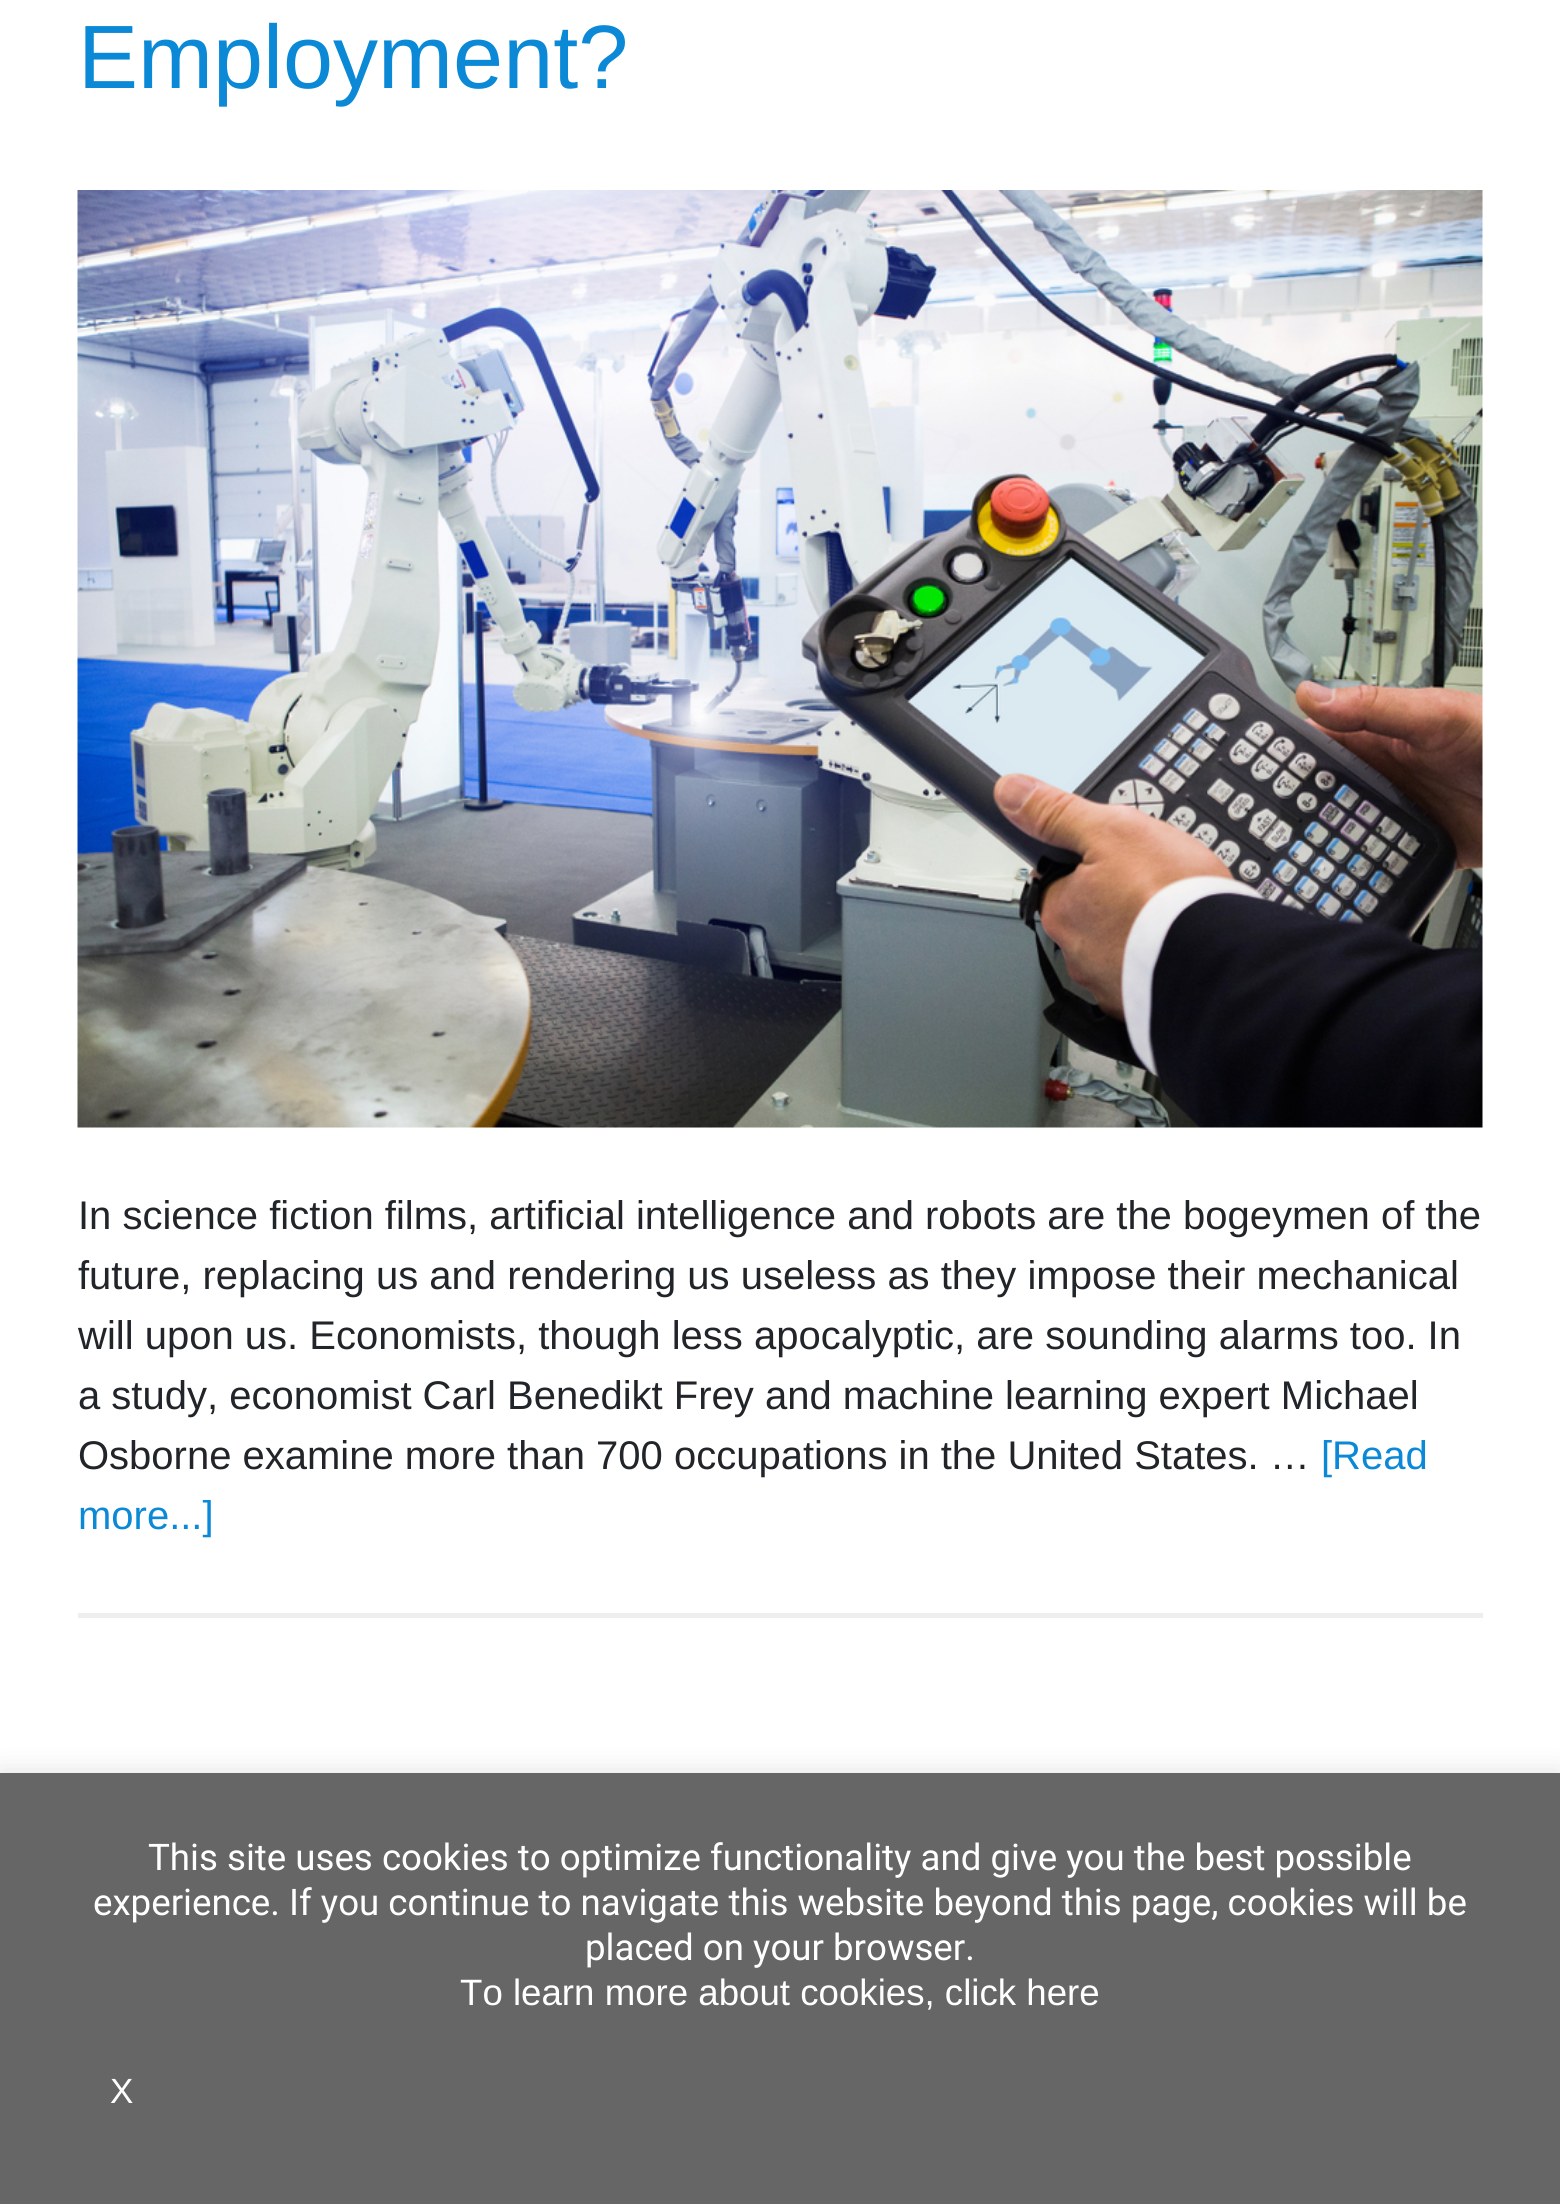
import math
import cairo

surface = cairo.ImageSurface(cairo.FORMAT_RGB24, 1560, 2204)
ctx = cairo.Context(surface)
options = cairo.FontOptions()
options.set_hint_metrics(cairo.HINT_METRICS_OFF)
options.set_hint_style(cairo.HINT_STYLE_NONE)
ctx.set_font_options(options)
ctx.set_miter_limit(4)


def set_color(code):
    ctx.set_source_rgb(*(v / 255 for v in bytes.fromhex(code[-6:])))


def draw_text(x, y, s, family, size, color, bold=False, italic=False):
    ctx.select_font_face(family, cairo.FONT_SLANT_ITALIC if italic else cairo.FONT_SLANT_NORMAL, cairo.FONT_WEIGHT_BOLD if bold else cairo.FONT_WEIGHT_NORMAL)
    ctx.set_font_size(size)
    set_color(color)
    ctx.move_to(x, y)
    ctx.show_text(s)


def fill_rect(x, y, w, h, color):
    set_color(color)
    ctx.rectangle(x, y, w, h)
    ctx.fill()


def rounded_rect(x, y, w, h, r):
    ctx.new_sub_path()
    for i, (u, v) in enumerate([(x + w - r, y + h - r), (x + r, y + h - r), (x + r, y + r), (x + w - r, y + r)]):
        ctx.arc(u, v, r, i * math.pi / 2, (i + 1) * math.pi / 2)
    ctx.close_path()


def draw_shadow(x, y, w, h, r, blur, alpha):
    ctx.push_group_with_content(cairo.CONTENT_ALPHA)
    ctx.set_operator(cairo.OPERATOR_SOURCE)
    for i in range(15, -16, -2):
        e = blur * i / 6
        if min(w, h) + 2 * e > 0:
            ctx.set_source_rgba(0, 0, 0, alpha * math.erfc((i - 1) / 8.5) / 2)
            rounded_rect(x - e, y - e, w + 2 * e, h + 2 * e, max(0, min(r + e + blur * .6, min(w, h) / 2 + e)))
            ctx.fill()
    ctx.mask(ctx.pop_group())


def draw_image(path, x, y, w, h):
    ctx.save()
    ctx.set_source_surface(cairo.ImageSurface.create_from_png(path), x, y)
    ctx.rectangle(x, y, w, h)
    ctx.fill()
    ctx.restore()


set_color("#ffffff")
ctx.paint()
fill_rect(78, 1613, 1405, 5, "#eeeeee")
draw_text(78, 88, "Employment?", "Liberation Sans", 90, "#0b89d6")
draw_image("assets/img1.png", 77, 190, 1406, 938)
draw_text(78, 1229, "In science fiction films, artificial intelligence and robots are the bogeymen of the", "Liberation Sans", 40, "#212529")
draw_text(78, 1289, "future, replacing us and rendering us useless as they impose their mechanical", "Liberation Sans", 40, "#212529")
draw_text(78, 1349, "will upon us. Economists, though less apocalyptic, are sounding alarms too. In", "Liberation Sans", 40, "#212529")
draw_text(78, 1409, "a study, economist Carl Benedikt Frey and machine learning expert Michael", "Liberation Sans", 40, "#212529")
draw_text(78, 1469, "Osborne examine more than 700 occupations in the United States. …", "Liberation Sans", 40, "#212529")
draw_text(1321, 1469, "[Read", "Liberation Sans", 40, "#0b89d6")
draw_text(78, 1529, "more...]", "Liberation Sans", 40, "#0b89d6")
set_color("#acabab")
draw_shadow(0, 1770, 1560, 433, 0, 12.5, 0.3)
fill_rect(0, 1773, 1560, 431, "#666666")
draw_text(148, 1870, "This site uses cookies to optimize functionality and give you the best possible", "Roboto", 36.65, "#ffffff")
draw_text(93, 1915, "experience. If you continue to navigate this website beyond this page, cookies will be", "Roboto", 36.65, "#ffffff")
draw_text(585, 1960, "placed on your browser.", "Roboto", 36.65, "#ffffff")
draw_text(460, 2005, "To learn more about cookies, click here", "Liberation Sans", 36.65, "#ffffff")
draw_text(110, 2103, "X", "Liberation Sans", 35, "#ffffff")
surface.write_to_png("output.png")
